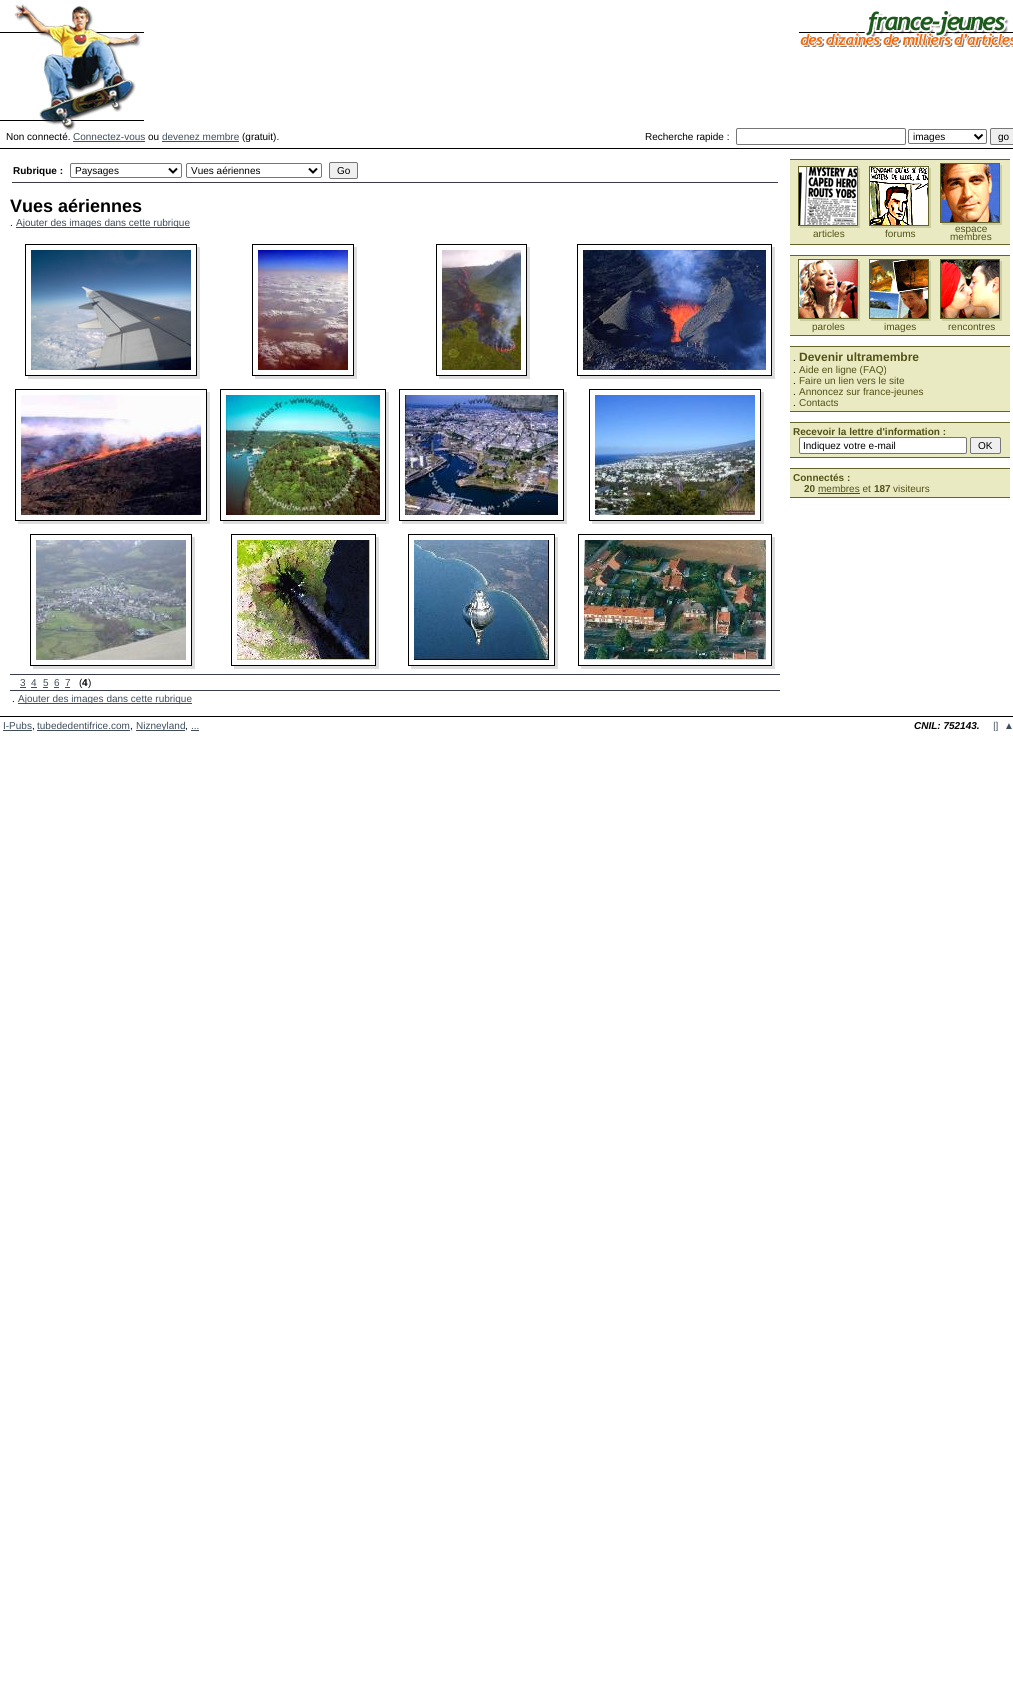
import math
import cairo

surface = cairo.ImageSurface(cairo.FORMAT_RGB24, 1013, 1689)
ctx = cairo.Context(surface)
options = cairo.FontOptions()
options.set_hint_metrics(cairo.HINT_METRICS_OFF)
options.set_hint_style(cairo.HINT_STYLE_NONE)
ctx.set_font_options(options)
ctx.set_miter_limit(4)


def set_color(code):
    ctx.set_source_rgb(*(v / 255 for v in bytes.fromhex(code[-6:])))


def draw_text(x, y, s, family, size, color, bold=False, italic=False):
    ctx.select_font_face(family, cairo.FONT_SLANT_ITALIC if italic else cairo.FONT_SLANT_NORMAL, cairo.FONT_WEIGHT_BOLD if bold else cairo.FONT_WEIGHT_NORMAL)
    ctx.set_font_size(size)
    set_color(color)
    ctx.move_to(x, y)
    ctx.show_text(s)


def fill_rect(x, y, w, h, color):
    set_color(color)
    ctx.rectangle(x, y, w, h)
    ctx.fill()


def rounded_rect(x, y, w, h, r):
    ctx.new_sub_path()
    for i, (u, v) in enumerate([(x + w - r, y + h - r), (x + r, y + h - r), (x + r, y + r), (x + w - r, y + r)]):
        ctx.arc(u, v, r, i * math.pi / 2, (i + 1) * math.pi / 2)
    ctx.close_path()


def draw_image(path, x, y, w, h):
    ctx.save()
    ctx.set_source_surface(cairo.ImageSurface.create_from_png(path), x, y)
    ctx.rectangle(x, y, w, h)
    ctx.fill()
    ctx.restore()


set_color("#ffffff")
ctx.paint()
draw_image("assets/img1.png", 0, 0, 144, 131)
draw_image("assets/img2.png", 799, 11, 214, 36)
draw_text(6, 140, "Non connecté.", "Liberation Sans", 10, "#000000")
draw_text(73, 140, "Connectez-vous", "Liberation Sans", 10, "#3f4d5c")
fill_rect(73, 141, 72, 1, "#3f4d5c")
draw_text(148, 140, "ou", "Liberation Sans", 10, "#000000")
draw_text(162, 140, "devenez membre", "Liberation Sans", 10, "#3f4d5c")
fill_rect(162, 141, 77, 1, "#3f4d5c")
draw_text(242, 140, "(gratuit).", "Liberation Sans", 10, "#000000")
draw_text(645, 140, "Recherche rapide :", "Liberation Sans", 10, "#000000")
rounded_rect(736.5, 128.5, 169, 16, 1.5)
set_color("#767676")
ctx.set_line_width(1)
ctx.stroke()
rounded_rect(908.5, 129.5, 78, 14, 1.5)
ctx.stroke()
ctx.new_path()
ctx.move_to(974.5, 134.5)
ctx.line_to(978.5, 138.5)
ctx.line_to(982.5, 134.5)
set_color("#000000")
ctx.set_line_width(2)
ctx.stroke()
draw_text(913, 140, "images", "Liberation Sans", 10, "#000000")
set_color("#efefef")
rounded_rect(990.5, 128.5, 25, 16, 1.5)
ctx.fill_preserve()
set_color("#767676")
ctx.set_line_width(1)
ctx.stroke()
draw_text(998, 140, "go", "Liberation Sans", 10, "#000000")
fill_rect(0, 148, 1013, 1, "#000000")
draw_text(13, 174, "Rubrique :", "Liberation Sans", 10, "#000000", bold=True)
rounded_rect(70.5, 163.5, 111, 14, 1.5)
set_color("#767676")
ctx.stroke()
ctx.new_path()
ctx.move_to(169, 168.5)
ctx.line_to(173, 172.5)
ctx.line_to(177, 168.5)
set_color("#000000")
ctx.set_line_width(2)
ctx.stroke()
draw_text(75, 174, "Paysages", "Liberation Sans", 10, "#000000")
rounded_rect(186.5, 163.5, 135, 14, 1.5)
set_color("#767676")
ctx.set_line_width(1)
ctx.stroke()
ctx.new_path()
ctx.move_to(309, 168.5)
ctx.line_to(313, 172.5)
ctx.line_to(317, 168.5)
set_color("#000000")
ctx.set_line_width(2)
ctx.stroke()
draw_text(191, 174, "Vues aériennes", "Liberation Sans", 10, "#000000")
set_color("#efefef")
rounded_rect(329.5, 162.5, 28, 16, 1.5)
ctx.fill_preserve()
set_color("#767676")
ctx.set_line_width(1)
ctx.stroke()
draw_text(337, 174, "Go", "Liberation Sans", 10, "#000000")
fill_rect(12, 182, 766, 1, "#373c4f")
draw_text(10, 212, "Vues aériennes", "Liberation Sans", 18, "#000000", bold=True)
draw_text(10, 226, ".", "Liberation Sans", 10, "#000000")
fill_rect(16, 227, 174, 1, "#3f4d5c")
draw_text(16, 226, "Ajouter des images dans cette rubrique", "Liberation Sans", 10, "#3f4d5c")
fill_rect(25, 244, 172, 132, "#000000")
fill_rect(26, 245, 170, 130, "#ffffff")
draw_image("assets/img3.png", 31, 250, 160, 120)
fill_rect(197, 244, 3, 132, "#dddddd")
fill_rect(197, 244, 3, 3, "#ffffff")
fill_rect(25, 376, 175, 3, "#dddddd")
fill_rect(25, 376, 3, 3, "#ffffff")
fill_rect(252, 244, 102, 132, "#000000")
fill_rect(253, 245, 100, 130, "#ffffff")
draw_image("assets/img4.png", 258, 250, 90, 120)
fill_rect(354, 244, 3, 132, "#dddddd")
fill_rect(354, 244, 3, 3, "#ffffff")
fill_rect(252, 376, 105, 3, "#dddddd")
fill_rect(252, 376, 3, 3, "#ffffff")
fill_rect(436, 244, 91, 132, "#000000")
fill_rect(437, 245, 89, 130, "#ffffff")
draw_image("assets/img5.png", 442, 250, 79, 120)
fill_rect(527, 244, 3, 132, "#dddddd")
fill_rect(527, 244, 3, 3, "#ffffff")
fill_rect(436, 376, 94, 3, "#dddddd")
fill_rect(436, 376, 3, 3, "#ffffff")
fill_rect(577, 244, 195, 132, "#000000")
fill_rect(578, 245, 193, 130, "#ffffff")
draw_image("assets/img6.png", 583, 250, 183, 120)
fill_rect(772, 244, 3, 132, "#dddddd")
fill_rect(772, 244, 3, 3, "#ffffff")
fill_rect(577, 376, 198, 3, "#dddddd")
fill_rect(577, 376, 3, 3, "#ffffff")
fill_rect(15, 389, 192, 132, "#000000")
fill_rect(16, 390, 190, 130, "#ffffff")
draw_image("assets/img7.png", 21, 395, 180, 120)
fill_rect(207, 389, 3, 132, "#dddddd")
fill_rect(207, 389, 3, 3, "#ffffff")
fill_rect(15, 521, 195, 3, "#dddddd")
fill_rect(15, 521, 3, 3, "#ffffff")
fill_rect(220, 389, 166, 132, "#000000")
fill_rect(221, 390, 164, 130, "#ffffff")
draw_image("assets/img8.png", 226, 395, 154, 120)
fill_rect(386, 389, 3, 132, "#dddddd")
fill_rect(386, 389, 3, 3, "#ffffff")
fill_rect(220, 521, 169, 3, "#dddddd")
fill_rect(220, 521, 3, 3, "#ffffff")
fill_rect(399, 389, 165, 132, "#000000")
fill_rect(400, 390, 163, 130, "#ffffff")
draw_image("assets/img9.png", 405, 395, 153, 120)
fill_rect(564, 389, 3, 132, "#dddddd")
fill_rect(564, 389, 3, 3, "#ffffff")
fill_rect(399, 521, 168, 3, "#dddddd")
fill_rect(399, 521, 3, 3, "#ffffff")
fill_rect(589, 389, 172, 132, "#000000")
fill_rect(590, 390, 170, 130, "#ffffff")
draw_image("assets/img10.png", 595, 395, 160, 120)
fill_rect(761, 389, 3, 132, "#dddddd")
fill_rect(761, 389, 3, 3, "#ffffff")
fill_rect(589, 521, 175, 3, "#dddddd")
fill_rect(589, 521, 3, 3, "#ffffff")
fill_rect(30, 534, 162, 132, "#000000")
fill_rect(31, 535, 160, 130, "#ffffff")
draw_image("assets/img11.png", 36, 540, 150, 120)
fill_rect(192, 534, 3, 132, "#dddddd")
fill_rect(192, 534, 3, 3, "#ffffff")
fill_rect(30, 666, 165, 3, "#dddddd")
fill_rect(30, 666, 3, 3, "#ffffff")
fill_rect(231, 534, 145, 132, "#000000")
fill_rect(232, 535, 143, 130, "#ffffff")
draw_image("assets/img12.png", 237, 540, 133, 120)
fill_rect(376, 534, 3, 132, "#dddddd")
fill_rect(376, 534, 3, 3, "#ffffff")
fill_rect(231, 666, 148, 3, "#dddddd")
fill_rect(231, 666, 3, 3, "#ffffff")
fill_rect(408, 534, 147, 132, "#000000")
fill_rect(409, 535, 145, 130, "#ffffff")
draw_image("assets/img13.png", 414, 540, 135, 120)
fill_rect(555, 534, 3, 132, "#dddddd")
fill_rect(555, 534, 3, 3, "#ffffff")
fill_rect(408, 666, 150, 3, "#dddddd")
fill_rect(408, 666, 3, 3, "#ffffff")
fill_rect(578, 534, 194, 132, "#000000")
fill_rect(579, 535, 192, 130, "#ffffff")
draw_image("assets/img14.png", 584, 540, 182, 120)
fill_rect(772, 534, 3, 132, "#dddddd")
fill_rect(772, 534, 3, 3, "#ffffff")
fill_rect(578, 666, 197, 3, "#dddddd")
fill_rect(578, 666, 3, 3, "#ffffff")
fill_rect(10, 674, 770, 1, "#373c4f")
draw_text(20, 686, "3", "Liberation Sans", 10, "#3f4d5c")
fill_rect(20, 687, 6, 1, "#3f4d5c")
draw_text(31, 686, "4", "Liberation Sans", 10, "#3f4d5c")
fill_rect(31, 687, 6, 1, "#3f4d5c")
draw_text(43, 686, "5", "Liberation Sans", 10, "#3f4d5c")
fill_rect(43, 687, 5, 1, "#3f4d5c")
draw_text(54, 686, "6", "Liberation Sans", 10, "#3f4d5c")
fill_rect(54, 687, 5, 1, "#3f4d5c")
draw_text(65, 686, "7", "Liberation Sans", 10, "#3f4d5c")
fill_rect(65, 687, 5, 1, "#3f4d5c")
draw_text(79, 686, "(", "Liberation Sans", 10, "#000000")
draw_text(82, 686, "4", "Liberation Sans", 10, "#000000", bold=True)
draw_text(88, 686, ")", "Liberation Sans", 10, "#000000")
fill_rect(10, 690, 770, 1, "#373c4f")
draw_text(12, 702, ".", "Liberation Sans", 10, "#000000")
fill_rect(18, 703, 174, 1, "#3f4d5c")
draw_text(18, 702, "Ajouter des images dans cette rubrique", "Liberation Sans", 10, "#3f4d5c")
fill_rect(790, 159, 220, 1, "#63632a")
fill_rect(790, 160, 220, 84, "#eaeac2")
draw_image("assets/img15.png", 798, 166, 62, 62)
draw_text(813, 237, "articles", "Liberation Sans", 10, "#515117")
draw_image("assets/img16.png", 869, 166, 62, 62)
draw_text(885, 237, "forums", "Liberation Sans", 10, "#515117")
draw_image("assets/img17.png", 940, 163, 62, 62)
draw_text(955, 232, "espace", "Liberation Sans", 10, "#515117")
draw_text(950, 240, "membres", "Liberation Sans", 10, "#515117")
fill_rect(790, 244, 220, 1, "#63632a")
fill_rect(790, 255, 220, 1, "#63632a")
fill_rect(790, 256, 220, 79, "#eaeac2")
draw_image("assets/img18.png", 798, 259, 62, 62)
draw_text(812, 330, "paroles", "Liberation Sans", 10, "#515117")
draw_image("assets/img19.png", 869, 259, 62, 62)
draw_text(884, 330, "images", "Liberation Sans", 10, "#515117")
draw_image("assets/img20.png", 940, 259, 62, 62)
draw_text(948, 330, "rencontres", "Liberation Sans", 10, "#515117")
fill_rect(790, 335, 220, 1, "#63632a")
fill_rect(790, 346, 220, 1, "#63632a")
fill_rect(790, 347, 220, 64, "#eaeac2")
draw_text(793, 361, ".", "Liberation Sans", 10, "#000000")
draw_text(799, 361, "Devenir ultramembre", "Liberation Sans", 12, "#515117", bold=True)
draw_text(793, 373, ".", "Liberation Sans", 10, "#000000")
draw_text(799, 373, "Aide en ligne (FAQ)", "Liberation Sans", 10, "#515117")
draw_text(793, 384, ".", "Liberation Sans", 10, "#000000")
draw_text(799, 384, "Faire un lien vers le site", "Liberation Sans", 10, "#515117")
draw_text(793, 395, ".", "Liberation Sans", 10, "#000000")
draw_text(799, 395, "Annoncez sur france-jeunes", "Liberation Sans", 10, "#515117")
draw_text(793, 406, ".", "Liberation Sans", 10, "#000000")
draw_text(799, 406, "Contacts", "Liberation Sans", 10, "#515117")
fill_rect(790, 411, 220, 1, "#63632a")
fill_rect(790, 422, 220, 1, "#63632a")
fill_rect(790, 423, 220, 34, "#eaeac2")
draw_text(793, 435, "Recevoir la lettre d'information :", "Liberation Sans", 10, "#515117", bold=True)
set_color("#ffffff")
rounded_rect(799.5, 437.5, 167, 16, 1.5)
ctx.fill_preserve()
set_color("#767676")
ctx.stroke()
draw_text(803, 449, "Indiquez votre e-mail", "Liberation Sans", 10, "#000000")
set_color("#efefef")
rounded_rect(970.5, 437.5, 30, 16, 1.5)
ctx.fill_preserve()
set_color("#767676")
ctx.stroke()
draw_text(978, 449, "OK", "Liberation Sans", 10, "#000000")
fill_rect(790, 457, 220, 1, "#63632a")
fill_rect(790, 468, 220, 1, "#63632a")
fill_rect(790, 469, 220, 28, "#eaeac2")
draw_text(793, 481, "Connectés :", "Liberation Sans", 10, "#515117", bold=True)
draw_text(804, 492, "20", "Liberation Sans", 10, "#515117", bold=True)
draw_text(818, 492, "membres et", "Liberation Sans", 10, "#515117")
fill_rect(818, 493, 42, 1, "#515117")
draw_text(874, 492, "187", "Liberation Sans", 10, "#515117", bold=True)
draw_text(893, 492, "visiteurs", "Liberation Sans", 10, "#515117")
fill_rect(790, 497, 220, 1, "#63632a")
fill_rect(0, 716, 1013, 1, "#000000")
draw_text(3, 729, "I-Pubs", "Liberation Sans", 10, "#3f4d5c")
fill_rect(3, 730, 29, 1, "#3f4d5c")
draw_text(32, 729, ",", "Liberation Sans", 10, "#000000")
draw_text(37, 729, "tubededentifrice.com", "Liberation Sans", 10, "#3f4d5c")
fill_rect(37, 730, 93, 1, "#3f4d5c")
draw_text(130, 729, ",", "Liberation Sans", 10, "#000000")
fill_rect(136, 730, 49, 1, "#3f4d5c")
draw_text(136, 729, "Nizneyland", "Liberation Sans", 10, "#3f4d5c")
draw_text(185, 729, ",", "Liberation Sans", 10, "#000000")
draw_text(191, 729, "...", "Liberation Sans", 10, "#3f4d5c")
fill_rect(191, 730, 8, 1, "#3f4d5c")
draw_text(914, 729, "CNIL: 752143.", "Liberation Sans", 10, "#000000", bold=True, italic=True)
draw_text(993, 729, "|]", "Liberation Sans", 10, "#3f4d5c")
draw_text(1004, 729, "▲", "Liberation Sans", 10, "#3f4d5c")
surface.write_to_png("output.png")
